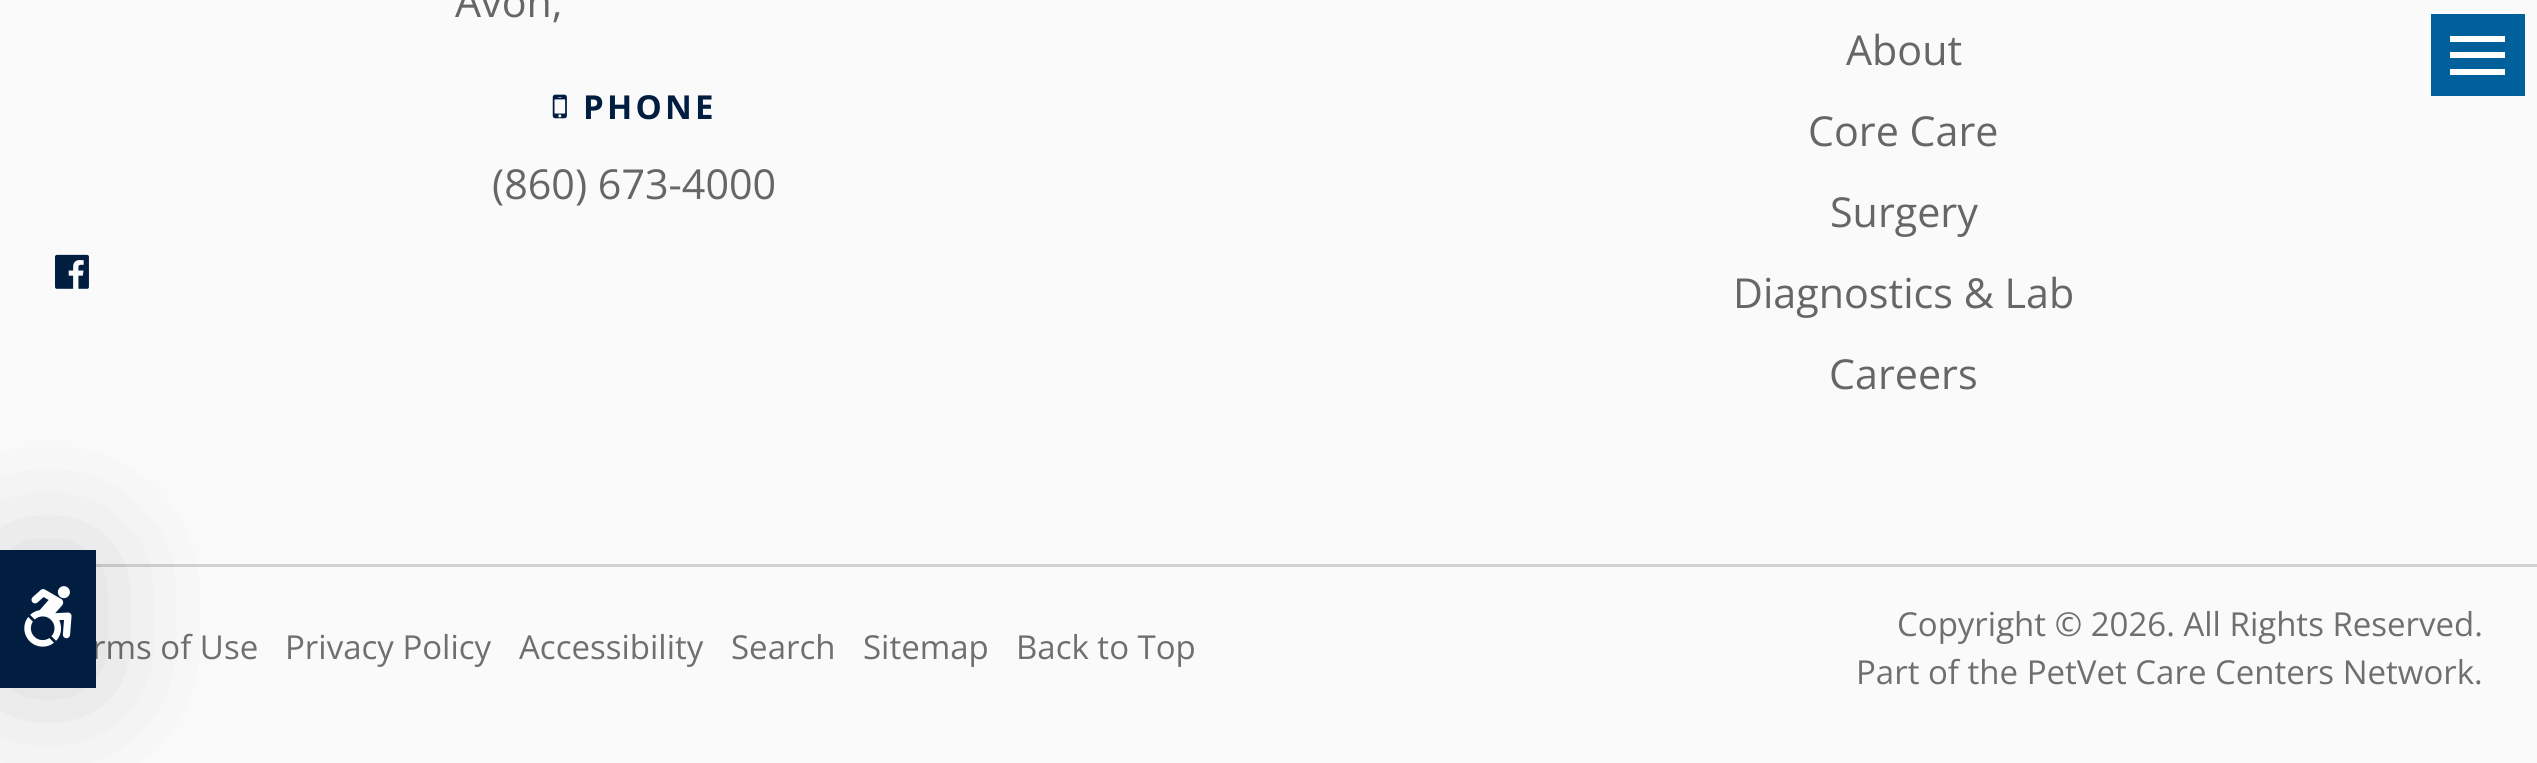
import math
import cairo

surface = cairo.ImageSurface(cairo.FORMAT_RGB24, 2537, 763)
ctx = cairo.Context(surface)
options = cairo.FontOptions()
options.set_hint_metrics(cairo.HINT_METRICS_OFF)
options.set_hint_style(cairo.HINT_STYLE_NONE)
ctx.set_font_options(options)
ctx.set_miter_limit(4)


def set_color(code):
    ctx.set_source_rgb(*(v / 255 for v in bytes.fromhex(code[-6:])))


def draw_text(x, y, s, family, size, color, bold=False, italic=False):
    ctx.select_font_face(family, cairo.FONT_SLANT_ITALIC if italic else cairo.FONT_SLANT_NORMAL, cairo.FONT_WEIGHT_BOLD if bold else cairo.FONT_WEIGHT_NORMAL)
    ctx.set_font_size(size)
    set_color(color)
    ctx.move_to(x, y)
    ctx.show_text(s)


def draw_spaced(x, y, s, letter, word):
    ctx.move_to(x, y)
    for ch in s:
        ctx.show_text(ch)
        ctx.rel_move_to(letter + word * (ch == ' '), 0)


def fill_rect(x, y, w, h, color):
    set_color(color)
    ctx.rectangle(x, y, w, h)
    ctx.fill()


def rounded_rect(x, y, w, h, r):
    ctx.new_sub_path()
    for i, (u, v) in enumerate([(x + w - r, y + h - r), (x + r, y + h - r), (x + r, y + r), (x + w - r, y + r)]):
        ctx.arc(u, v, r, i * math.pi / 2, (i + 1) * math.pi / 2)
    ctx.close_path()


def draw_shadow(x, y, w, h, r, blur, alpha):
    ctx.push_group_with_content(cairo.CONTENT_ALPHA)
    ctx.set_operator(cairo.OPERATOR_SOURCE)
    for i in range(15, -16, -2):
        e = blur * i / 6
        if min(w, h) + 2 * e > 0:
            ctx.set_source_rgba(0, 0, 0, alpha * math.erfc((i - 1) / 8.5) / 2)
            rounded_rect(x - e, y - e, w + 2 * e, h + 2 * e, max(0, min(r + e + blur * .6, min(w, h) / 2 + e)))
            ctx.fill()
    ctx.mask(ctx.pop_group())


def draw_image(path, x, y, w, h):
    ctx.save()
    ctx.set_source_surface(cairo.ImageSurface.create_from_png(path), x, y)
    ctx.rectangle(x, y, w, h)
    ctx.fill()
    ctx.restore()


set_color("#fafafa")
ctx.paint()
draw_text(455, 17, "Avon,", "Open Sans", 41.25, "#666666")
draw_image("assets/img1.png", 552, 94, 15, 25)
ctx.select_font_face("Open Sans", cairo.FONT_SLANT_NORMAL, cairo.FONT_WEIGHT_BOLD)
ctx.set_font_size(33)
set_color("#011e41")
draw_spaced(583, 119, "PHONE", 3.25, 0)
draw_text(492, 199, "(860) 673-4000", "Open Sans", 41.25, "#666666")
draw_image("assets/img2.png", 55, 254, 34, 35)
draw_text(1846, 65, "About", "Open Sans", 41.25, "#666666")
draw_text(1808, 146, "Core Care", "Open Sans", 41.25, "#666666")
draw_text(1830, 227, "Surgery", "Open Sans", 41.25, "#666666")
draw_text(1733, 308, "Diagnostics & Lab", "Open Sans", 41.25, "#666666")
draw_text(1829, 389, "Careers", "Open Sans", 41.25, "#666666")
fill_rect(96, 564, 2441, 3, "#d2d2d2")
draw_text(92, 659, "rms of Use", "Open Sans", 33, "#6f6f6f")
draw_text(285, 659, "Privacy Policy", "Open Sans", 33, "#6f6f6f")
draw_text(519, 659, "Accessibility", "Open Sans", 33, "#6f6f6f")
draw_text(731, 659, "Search", "Open Sans", 33, "#6f6f6f")
draw_text(863, 659, "Sitemap", "Open Sans", 33, "#6f6f6f")
draw_text(1016, 659, "Back to Top", "Open Sans", 33, "#6f6f6f")
draw_text(1897, 636, "Copyright © 2026. All Rights Reserved.", "Open Sans", 33, "#6f6f6f")
draw_text(1856, 684, "Part of the PetVet Care Centers Network.", "Open Sans", 33, "#6f6f6f")
fill_rect(2431, 14, 94, 82, "#00609c")
fill_rect(2450, 36, 55, 6, "#ffffff")
fill_rect(2450, 52, 55, 6, "#ffffff")
fill_rect(2450, 69, 55, 6, "#ffffff")
set_color("#000000")
draw_shadow(0, 550, 96, 138, 0, 69, 0.15)
fill_rect(0, 550, 96, 138, "#011e41")
draw_image("assets/img3.png", 24, 586, 48, 61)
surface.write_to_png("output.png")
